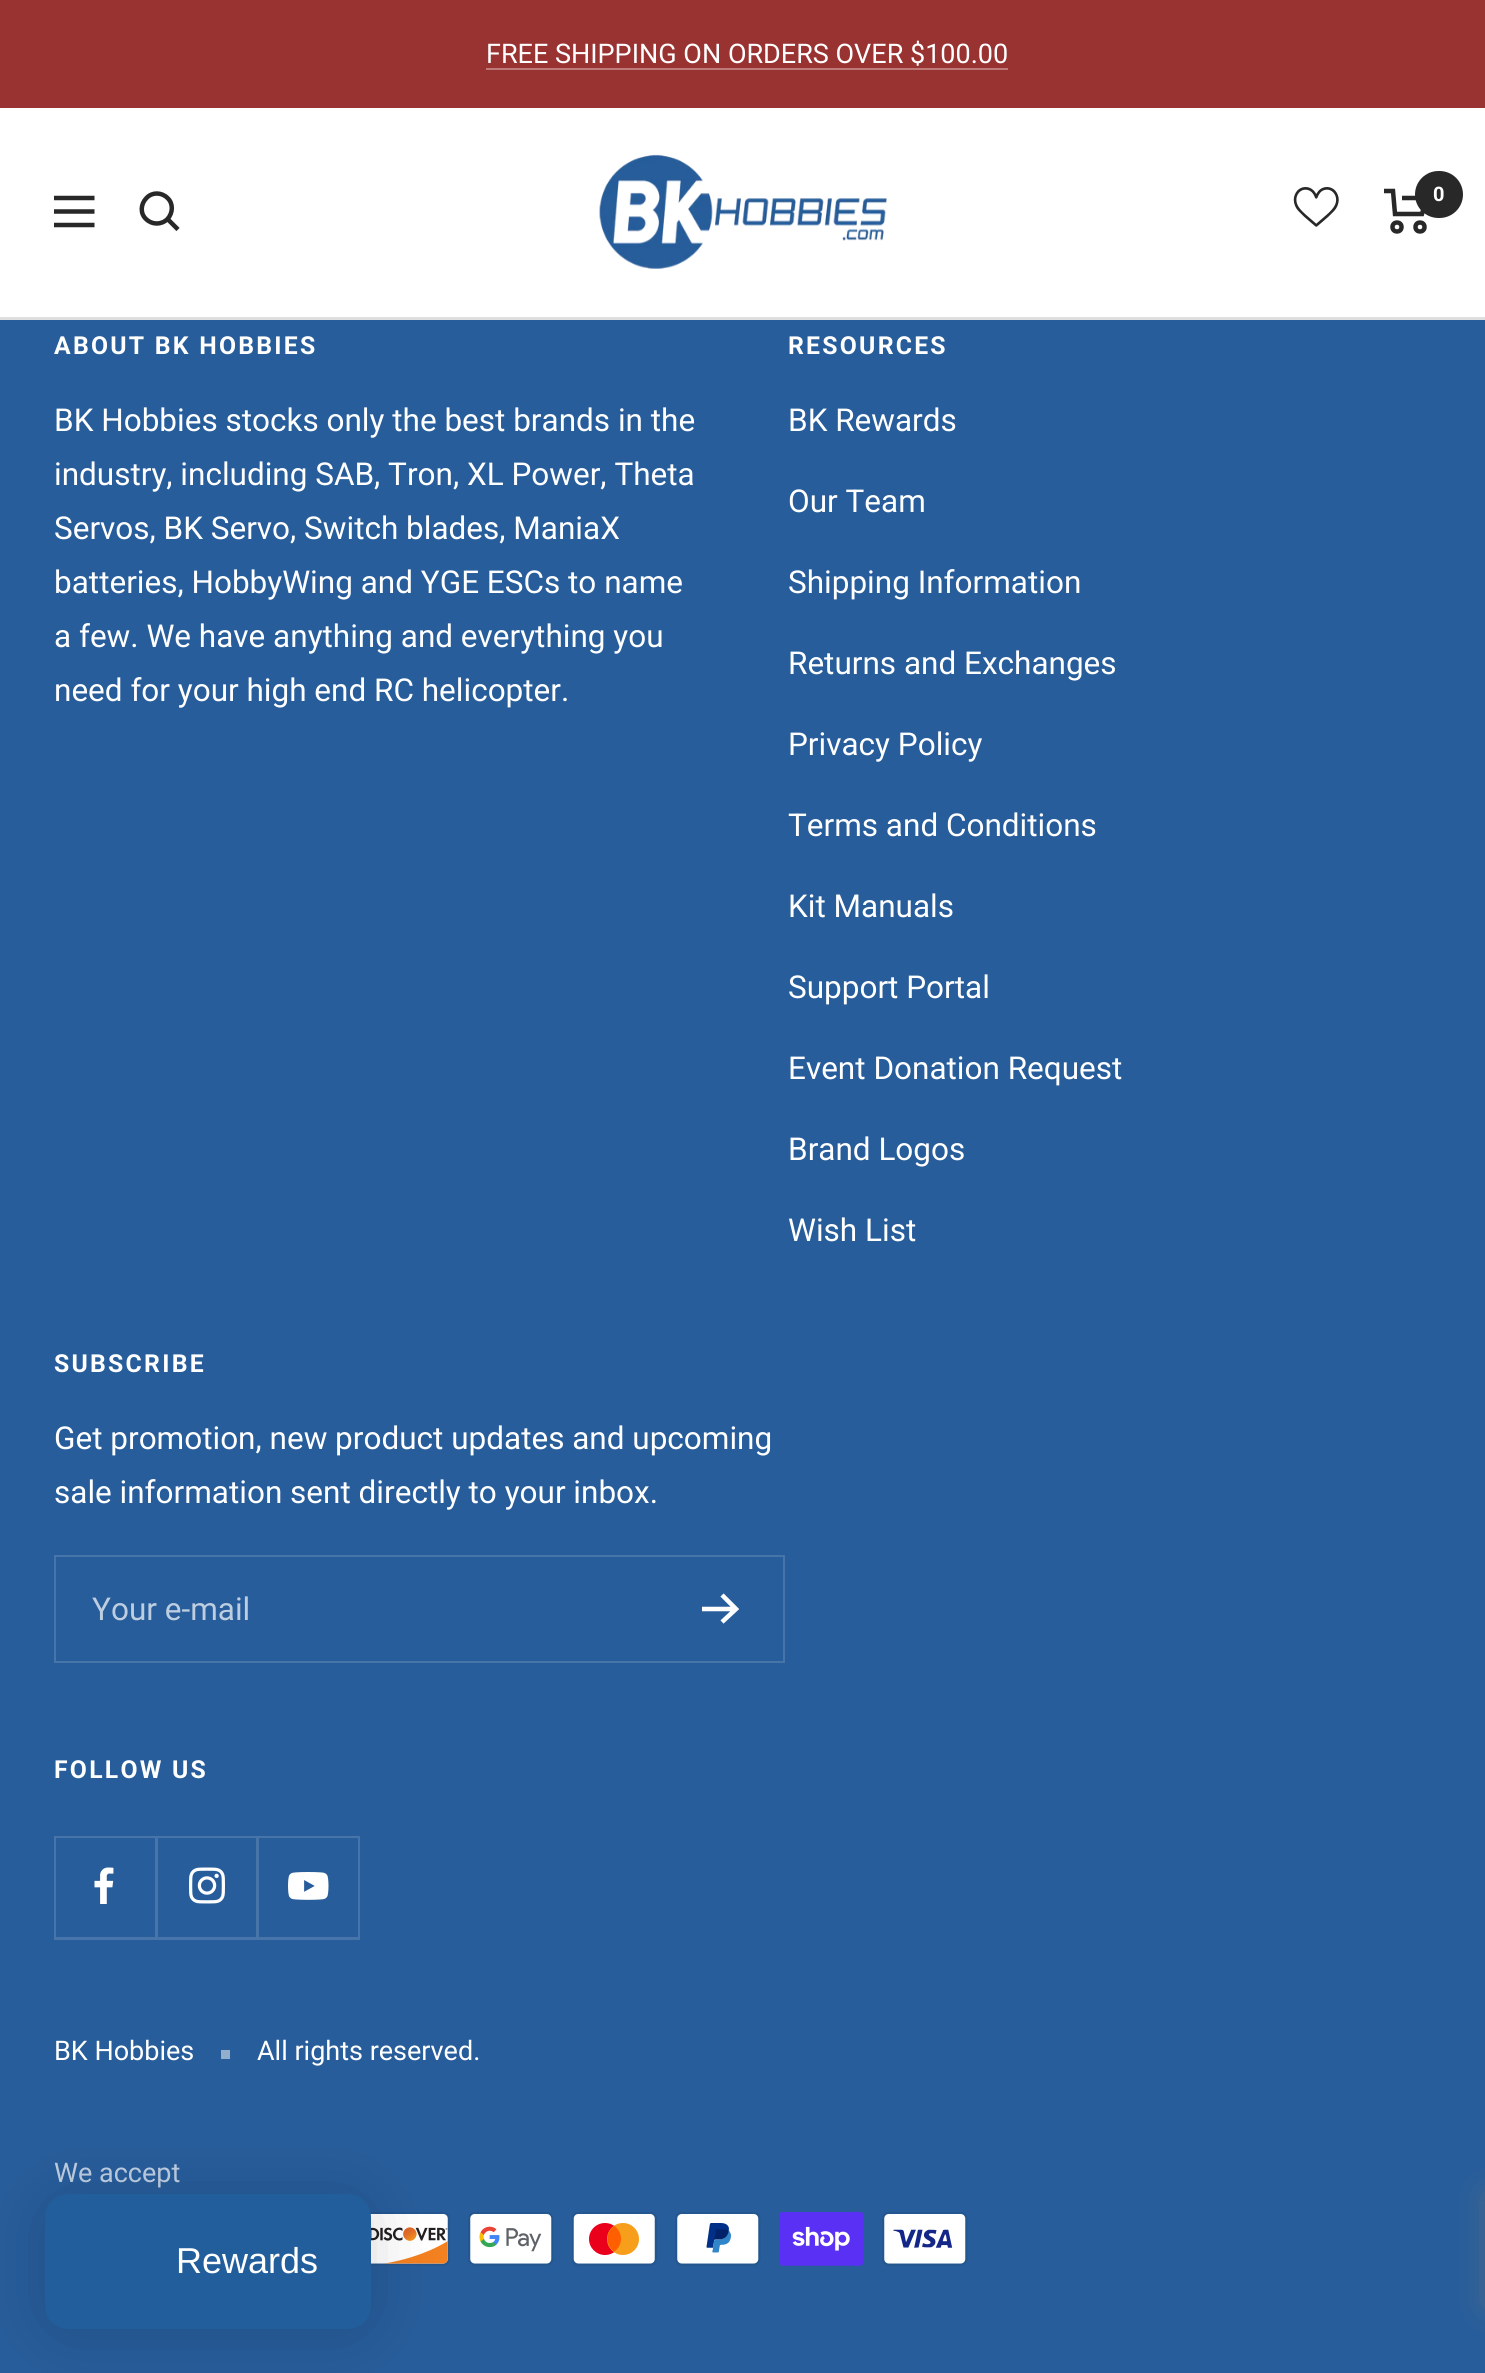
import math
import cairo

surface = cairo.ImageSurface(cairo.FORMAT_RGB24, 1485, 2373)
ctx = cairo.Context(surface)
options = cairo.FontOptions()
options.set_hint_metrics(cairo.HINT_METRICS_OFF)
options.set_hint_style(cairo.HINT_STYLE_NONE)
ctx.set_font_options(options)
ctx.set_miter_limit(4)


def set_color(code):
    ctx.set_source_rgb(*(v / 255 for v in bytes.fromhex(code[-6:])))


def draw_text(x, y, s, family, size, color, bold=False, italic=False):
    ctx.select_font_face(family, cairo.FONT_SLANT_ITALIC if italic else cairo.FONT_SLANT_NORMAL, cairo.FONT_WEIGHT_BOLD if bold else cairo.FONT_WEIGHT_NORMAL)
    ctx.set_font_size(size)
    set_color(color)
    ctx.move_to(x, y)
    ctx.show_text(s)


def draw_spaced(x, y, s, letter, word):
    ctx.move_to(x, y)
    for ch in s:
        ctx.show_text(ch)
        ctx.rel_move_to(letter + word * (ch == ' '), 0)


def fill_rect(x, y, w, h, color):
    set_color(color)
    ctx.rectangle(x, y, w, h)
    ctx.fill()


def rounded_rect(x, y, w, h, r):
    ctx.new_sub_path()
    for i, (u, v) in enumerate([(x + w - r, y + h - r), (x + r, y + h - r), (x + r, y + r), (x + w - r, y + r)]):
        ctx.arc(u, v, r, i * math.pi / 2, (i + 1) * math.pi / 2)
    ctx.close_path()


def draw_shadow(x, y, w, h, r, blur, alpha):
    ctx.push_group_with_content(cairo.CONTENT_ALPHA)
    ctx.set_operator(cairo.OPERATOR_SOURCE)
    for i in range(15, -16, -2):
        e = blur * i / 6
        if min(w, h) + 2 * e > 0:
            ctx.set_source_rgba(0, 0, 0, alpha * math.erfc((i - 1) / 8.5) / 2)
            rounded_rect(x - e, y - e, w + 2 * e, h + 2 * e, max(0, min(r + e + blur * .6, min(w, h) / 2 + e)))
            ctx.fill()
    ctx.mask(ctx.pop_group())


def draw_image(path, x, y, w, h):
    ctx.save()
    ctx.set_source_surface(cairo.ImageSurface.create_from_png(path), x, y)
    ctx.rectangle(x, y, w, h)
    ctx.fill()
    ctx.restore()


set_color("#275d9b")
ctx.paint()
fill_rect(0, 0, 1485, 108, "#993331")
draw_text(486, 63, "FREE SHIPPING ON ORDERS OVER $100.00", "Roboto", 27, "#ffffff")
fill_rect(486, 68, 522, 2, "#bd7a79")
fill_rect(0, 317, 1485, 3, "#dfdfdf")
fill_rect(0, 108, 1485, 209, "#ffffff")
ctx.new_path()
ctx.move_to(54, 198)
ctx.line_to(94.5, 198)
ctx.move_to(54, 225)
ctx.line_to(94.5, 225)
ctx.close_path()
ctx.move_to(54, 211.5)
ctx.line_to(94.5, 211.5)
ctx.close_path()
set_color("#282828")
ctx.set_line_width(4.5)
ctx.stroke()
ctx.new_path()
ctx.move_to(167.5, 219)
ctx.curve_to(173, 213, 173.5, 203.5, 167.5, 198)
ctx.curve_to(161.5, 192, 152, 192, 146.5, 198)
ctx.curve_to(140.5, 204, 140, 213.5, 146, 219)
ctx.curve_to(152, 225, 161.5, 225, 167.5, 219)
ctx.close_path()
ctx.move_to(167.5, 219)
ctx.line_to(178, 229.5)
ctx.stroke()
draw_image("assets/img1.png", 599, 154, 288, 115)
draw_image("assets/img2.png", 1293, 187, 46, 40)
ctx.new_path()
ctx.move_to(1384, 191)
ctx.line_to(1393, 191)
ctx.line_to(1395, 214)
ctx.line_to(1422, 214)
ctx.line_to(1426.5, 198)
ctx.line_to(1402, 198)
ctx.stroke()
ctx.arc(1397, 227, 4.5, 0, 2 * math.pi)
ctx.stroke()
ctx.arc(1420, 227, 4.5, 0, 2 * math.pi)
ctx.stroke()
rounded_rect(1415, 171, 48, 47, 23.5)
ctx.fill()
draw_text(1433, 201, "0", "Roboto", 20, "#ffffff", bold=True)
ctx.set_font_size(24.75)
draw_spaced(54, 354, "ABOUT BK HOBBIES", 2.25, 0)
draw_text(54, 431, "BK Hobbies stocks only the best brands in the", "Roboto", 31.5, "#ffffff")
draw_text(54, 485, "industry, including SAB, Tron, XL Power, Theta", "Roboto", 31.5, "#ffffff")
draw_text(54, 539, "Servos, BK Servo, Switch blades, ManiaX", "Roboto", 31.5, "#ffffff")
draw_text(54, 593, "batteries, HobbyWing and YGE ESCs to name", "Roboto", 31.5, "#ffffff")
draw_text(54, 647, "a few. We have anything and everything you", "Roboto", 31.5, "#ffffff")
draw_text(54, 701, "need for your high end RC helicopter.", "Roboto", 31.5, "#ffffff")
ctx.select_font_face("Roboto", cairo.FONT_SLANT_NORMAL, cairo.FONT_WEIGHT_BOLD)
ctx.set_font_size(24.75)
draw_spaced(788, 354, "RESOURCES", 2.25, 0)
draw_text(788, 431, "BK Rewards", "Roboto", 31.5, "#ffffff")
draw_text(788, 512, "Our Team", "Roboto", 31.5, "#ffffff")
draw_text(788, 593, "Shipping Information", "Roboto", 31.5, "#ffffff")
draw_text(788, 674, "Returns and Exchanges", "Roboto", 31.5, "#ffffff")
draw_text(788, 755, "Privacy Policy", "Roboto", 31.5, "#ffffff")
draw_text(788, 836, "Terms and Conditions", "Roboto", 31.5, "#ffffff")
draw_text(788, 917, "Kit Manuals", "Roboto", 31.5, "#ffffff")
draw_text(788, 998, "Support Portal", "Roboto", 31.5, "#ffffff")
draw_text(788, 1079, "Event Donation Request", "Roboto", 31.5, "#ffffff")
draw_text(788, 1160, "Brand Logos", "Roboto", 31.5, "#ffffff")
draw_text(788, 1241, "Wish List", "Roboto", 31.5, "#ffffff")
ctx.select_font_face("Roboto", cairo.FONT_SLANT_NORMAL, cairo.FONT_WEIGHT_BOLD)
ctx.set_font_size(24.75)
draw_spaced(54, 1372, "SUBSCRIBE", 2.25, 0)
draw_text(54, 1449, "Get promotion, new product updates and upcoming", "Roboto", 31.5, "#ffffff")
draw_text(54, 1503, "sale information sent directly to your inbox.", "Roboto", 31.5, "#ffffff")
ctx.rectangle(55, 1556, 729, 106)
set_color("#4775aa")
ctx.set_line_width(2)
ctx.stroke()
draw_text(92, 1620, "Your e-mail", "Roboto", 31.5, "#becee1")
ctx.new_path()
ctx.move_to(702, 1609)
ctx.line_to(736, 1609)
ctx.move_to(722, 1595)
ctx.line_to(736, 1609)
ctx.line_to(722, 1622)
set_color("#ffffff")
ctx.set_line_width(4.5)
ctx.stroke()
ctx.select_font_face("Roboto", cairo.FONT_SLANT_NORMAL, cairo.FONT_WEIGHT_BOLD)
ctx.set_font_size(24.75)
draw_spaced(54, 1778, "FOLLOW US", 2.25, 0)
set_color("#4775aa")
ctx.new_path()
ctx.move_to(56, 1937)
ctx.line_to(56, 1940)
ctx.line_to(158, 1940)
ctx.line_to(158, 1838)
ctx.line_to(155, 1838)
ctx.line_to(155, 1937)
ctx.close_path()
ctx.fill()
fill_rect(54, 1937, 2, 3, "#4775aa")
fill_rect(54, 1836, 104, 2, "#4775aa")
fill_rect(54, 1836, 2, 101, "#4775aa")
draw_image("assets/img3.png", 94, 1867, 20, 37)
ctx.new_path()
ctx.move_to(158, 1937)
ctx.line_to(158, 1940)
ctx.line_to(259, 1940)
ctx.line_to(259, 1838)
ctx.line_to(256, 1838)
ctx.line_to(256, 1937)
ctx.close_path()
ctx.fill()
fill_rect(155, 1836, 104, 2, "#4775aa")
draw_image("assets/img4.png", 189, 1867, 36, 37)
ctx.new_path()
ctx.move_to(259, 1937)
ctx.line_to(259, 1940)
ctx.line_to(360, 1940)
ctx.line_to(360, 1838)
ctx.line_to(358, 1838)
ctx.line_to(358, 1937)
ctx.close_path()
ctx.fill()
fill_rect(257, 1836, 103, 2, "#4775aa")
draw_image("assets/img5.png", 288, 1872, 41, 28)
draw_text(54, 2060, "BK Hobbies", "Roboto", 27, "#ffffff")
fill_rect(221, 2050, 9, 9, "#93aecd")
draw_text(257, 2060, "All rights reserved.", "Roboto", 27, "#ffffff")
draw_text(54, 2182, "We accept", "Roboto", 27, "#becee1")
draw_image("assets/img6.png", 370, 2212, 80, 54)
draw_image("assets/img7.png", 468, 2212, 86, 54)
draw_image("assets/img8.png", 572, 2212, 85, 54)
draw_image("assets/img9.png", 675, 2212, 86, 54)
draw_image("assets/img10.png", 779, 2212, 85, 54)
draw_image("assets/img11.png", 882, 2212, 86, 54)
set_color("#000000")
draw_shadow(45, 2198, 326, 135, 23, 34, 0.15)
set_color("#225e9b")
rounded_rect(45, 2194, 326, 135, 23)
ctx.fill()
draw_text(176, 2273, "Rewards", "Liberation Sans", 36, "#ffffff")
set_color("#757575")
draw_shadow(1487, 2194, 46, 112, 0, 16, 0.5)
surface.write_to_png("output.png")
